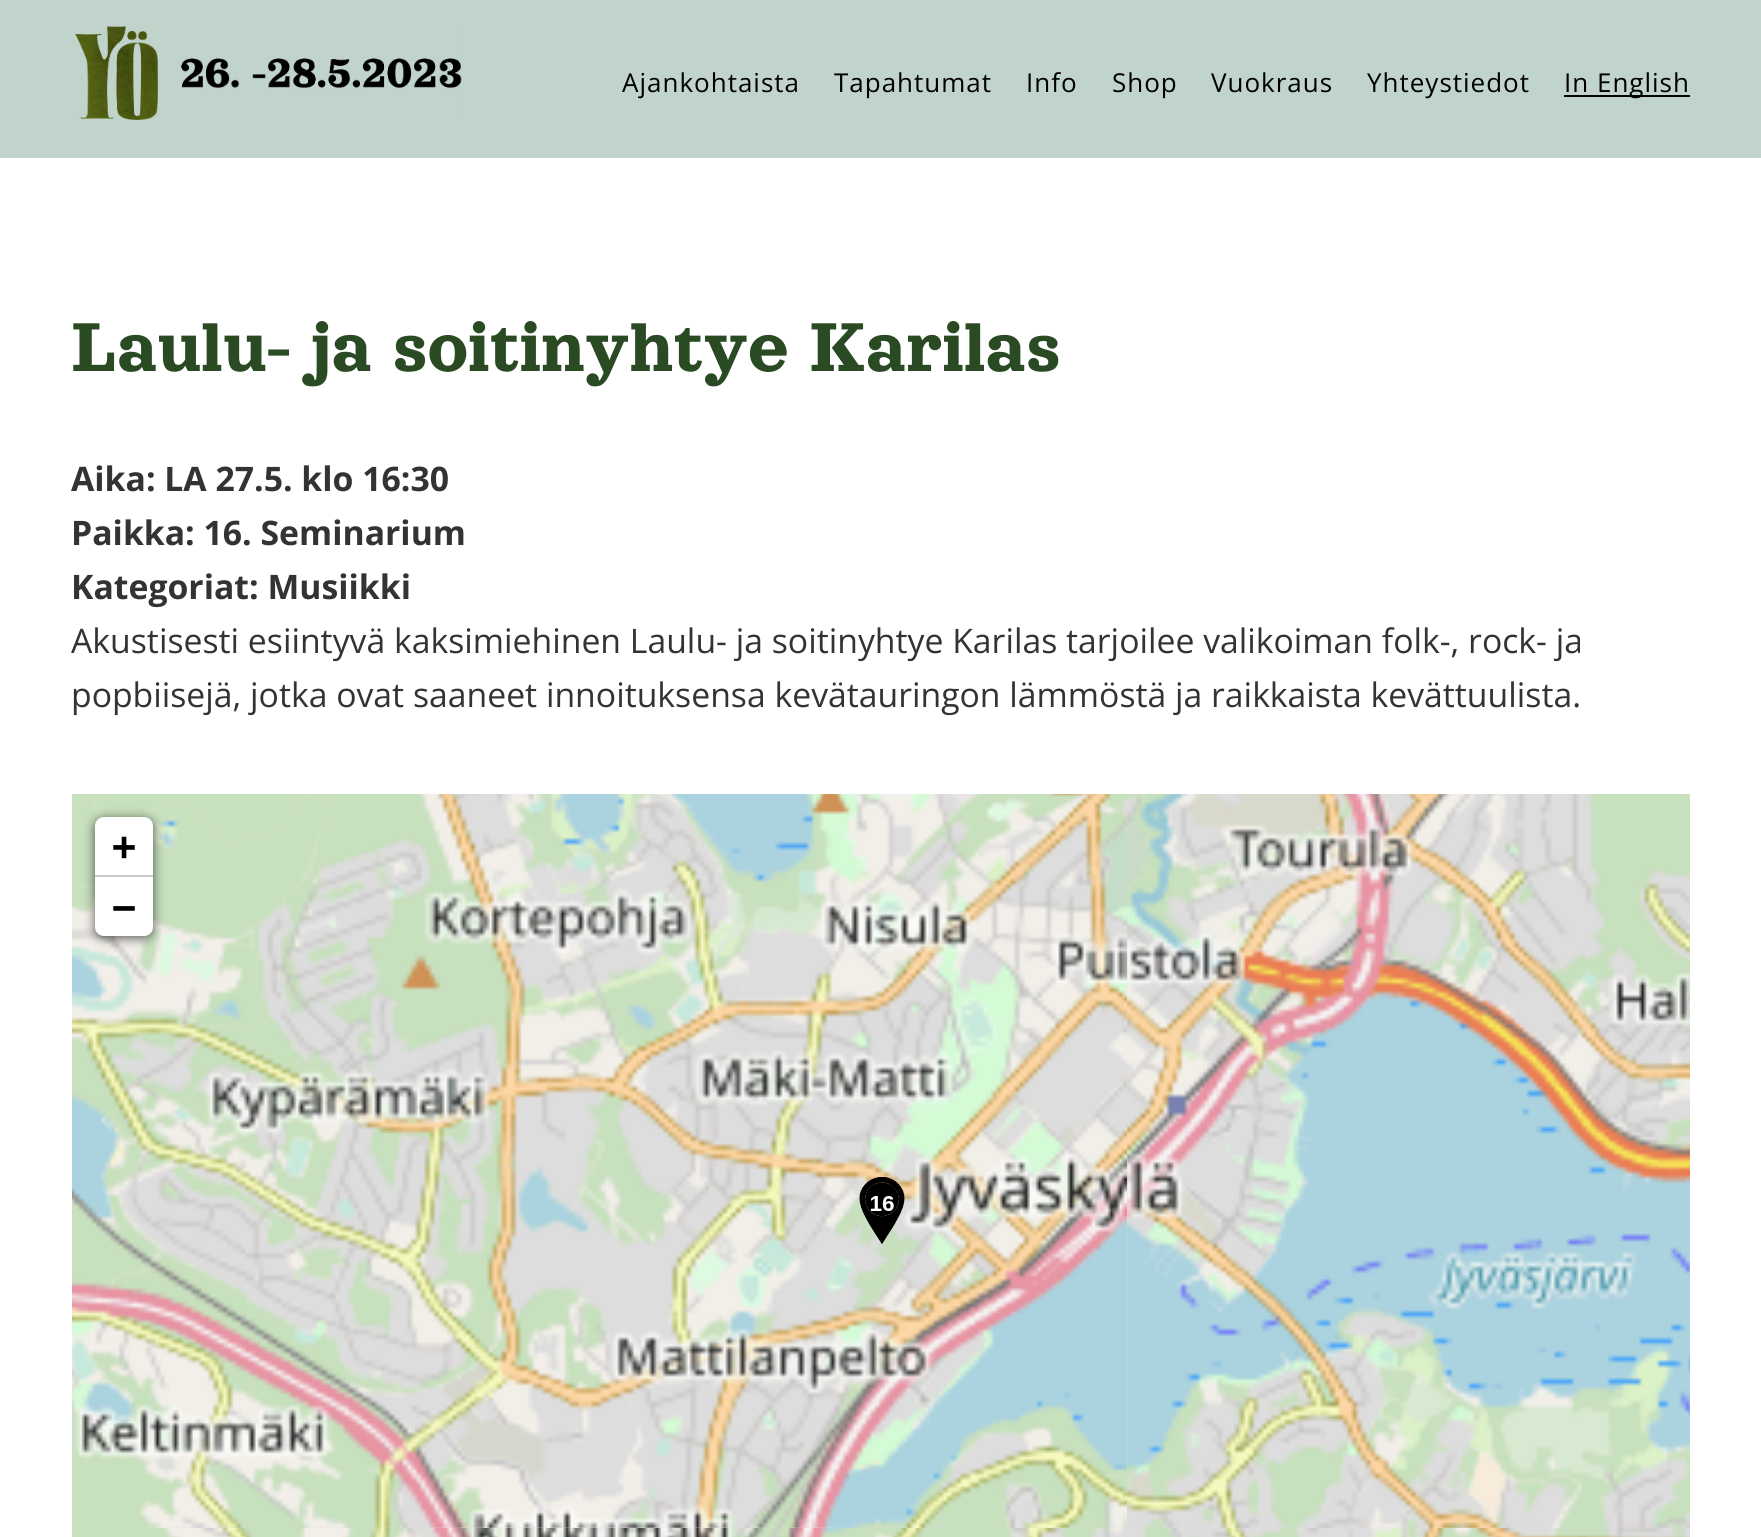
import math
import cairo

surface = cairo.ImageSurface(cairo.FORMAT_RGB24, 1761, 1537)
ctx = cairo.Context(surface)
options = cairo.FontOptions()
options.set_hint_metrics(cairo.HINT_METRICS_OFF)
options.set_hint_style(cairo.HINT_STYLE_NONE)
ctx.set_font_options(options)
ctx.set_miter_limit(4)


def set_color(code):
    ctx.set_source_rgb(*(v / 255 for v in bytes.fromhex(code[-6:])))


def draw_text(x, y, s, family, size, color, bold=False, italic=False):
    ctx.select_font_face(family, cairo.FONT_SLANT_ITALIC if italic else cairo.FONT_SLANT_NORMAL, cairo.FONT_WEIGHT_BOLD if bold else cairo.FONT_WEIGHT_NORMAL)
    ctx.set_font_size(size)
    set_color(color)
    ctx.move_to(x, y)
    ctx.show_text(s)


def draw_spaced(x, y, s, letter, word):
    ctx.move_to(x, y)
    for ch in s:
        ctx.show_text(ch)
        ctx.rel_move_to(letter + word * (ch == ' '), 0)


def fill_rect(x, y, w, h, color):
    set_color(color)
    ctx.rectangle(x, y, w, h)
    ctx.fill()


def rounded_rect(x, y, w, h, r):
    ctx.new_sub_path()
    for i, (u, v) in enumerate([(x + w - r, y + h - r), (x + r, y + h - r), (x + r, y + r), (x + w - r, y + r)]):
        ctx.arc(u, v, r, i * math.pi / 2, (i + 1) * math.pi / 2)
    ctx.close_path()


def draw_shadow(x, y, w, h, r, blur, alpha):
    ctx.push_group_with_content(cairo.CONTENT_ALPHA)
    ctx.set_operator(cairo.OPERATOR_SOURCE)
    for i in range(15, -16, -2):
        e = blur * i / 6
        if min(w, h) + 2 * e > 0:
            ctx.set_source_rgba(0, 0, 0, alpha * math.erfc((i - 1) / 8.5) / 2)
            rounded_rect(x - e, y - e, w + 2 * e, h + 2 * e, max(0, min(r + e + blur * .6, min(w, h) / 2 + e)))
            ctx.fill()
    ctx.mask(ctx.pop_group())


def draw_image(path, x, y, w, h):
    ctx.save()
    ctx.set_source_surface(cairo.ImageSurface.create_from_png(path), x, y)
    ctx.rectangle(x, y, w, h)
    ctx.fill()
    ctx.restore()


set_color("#ffffff")
ctx.paint()
fill_rect(0, 0, 1761, 158, "#c0d4cb")
draw_image("assets/img1.png", 75, 26, 387, 94)
ctx.select_font_face("Open Sans")
ctx.set_font_size(26)
set_color("#000000")
draw_spaced(622, 92, "Ajankohtaista", 1, 0)
draw_spaced(834, 92, "Tapahtumat", 1, 0)
draw_spaced(1026, 92, "Info", 1, 0)
draw_spaced(1112, 92, "Shop", 1, 0)
draw_spaced(1211, 92, "Vuokraus", 1, 0)
draw_spaced(1367, 92, "Yhteystiedot", 1, 0)
fill_rect(1564, 95, 126, 2, "#000000")
draw_spaced(1564, 92, "In English", 1, 0)
draw_text(71, 371, "Laulu- ja soitinyhtye Karilas", "Orelega One", 78.75, "#294a22")
draw_text(71, 491, "Aika: LA 27.5. klo 16:30", "Open Sans", 33.75, "#333333", bold=True)
draw_text(71, 545, "Paikka: 16. Seminarium", "Open Sans", 33.75, "#333333", bold=True)
draw_text(71, 599, "Kategoriat: Musiikki", "Open Sans", 33.75, "#333333", bold=True)
draw_text(71, 653, "Akustisesti esiintyvä kaksimiehinen Laulu- ja soitinyhtye Karilas tarjoilee valikoiman folk-, rock- ja", "Open Sans", 33.75, "#333333")
draw_text(71, 707, "popbiisejä, jotka ovat saaneet innoituksensa kevätauringon lämmöstä ja raikkaista kevättuulista.", "Open Sans", 33.75, "#333333")
fill_rect(72, 794, 1618, 743, "#dddddd")
draw_image("assets/img2.png", 72, 794, 1056, 734)
draw_image("assets/img3.png", 1127, 794, 563, 734)
draw_image("assets/img4.png", 72, 1528, 1052, 9)
draw_image("assets/img5.png", 1142, 1528, 548, 9)
draw_image("assets/img6.png", 859, 1177, 46, 67)
set_color("#000000")
draw_shadow(95, 819, 58, 119, 9, 5.5, 0.65)
set_color("#ffffff")
ctx.new_path()
ctx.move_to(104, 817)
ctx.line_to(144, 817)
ctx.curve_to(149, 817, 153, 821, 153, 826)
ctx.line_to(153, 878)
ctx.line_to(95, 878)
ctx.line_to(95, 826)
ctx.curve_to(95, 821, 99, 817, 104, 817)
ctx.close_path()
ctx.fill()
fill_rect(95, 875, 58, 2, "#cccccc")
draw_text(112, 860, "+", "DejaVu Sans Mono", 40, "#000000", bold=True)
set_color("#ffffff")
ctx.new_path()
ctx.move_to(95, 878)
ctx.line_to(153, 878)
ctx.line_to(153, 927)
ctx.curve_to(153, 932, 149, 936, 144, 936)
ctx.line_to(104, 936)
ctx.curve_to(99, 936, 95, 932, 95, 927)
ctx.close_path()
ctx.fill()
draw_text(112, 921, "−", "DejaVu Sans Mono", 40, "#000000", bold=True)
surface.write_to_png("output.png")
